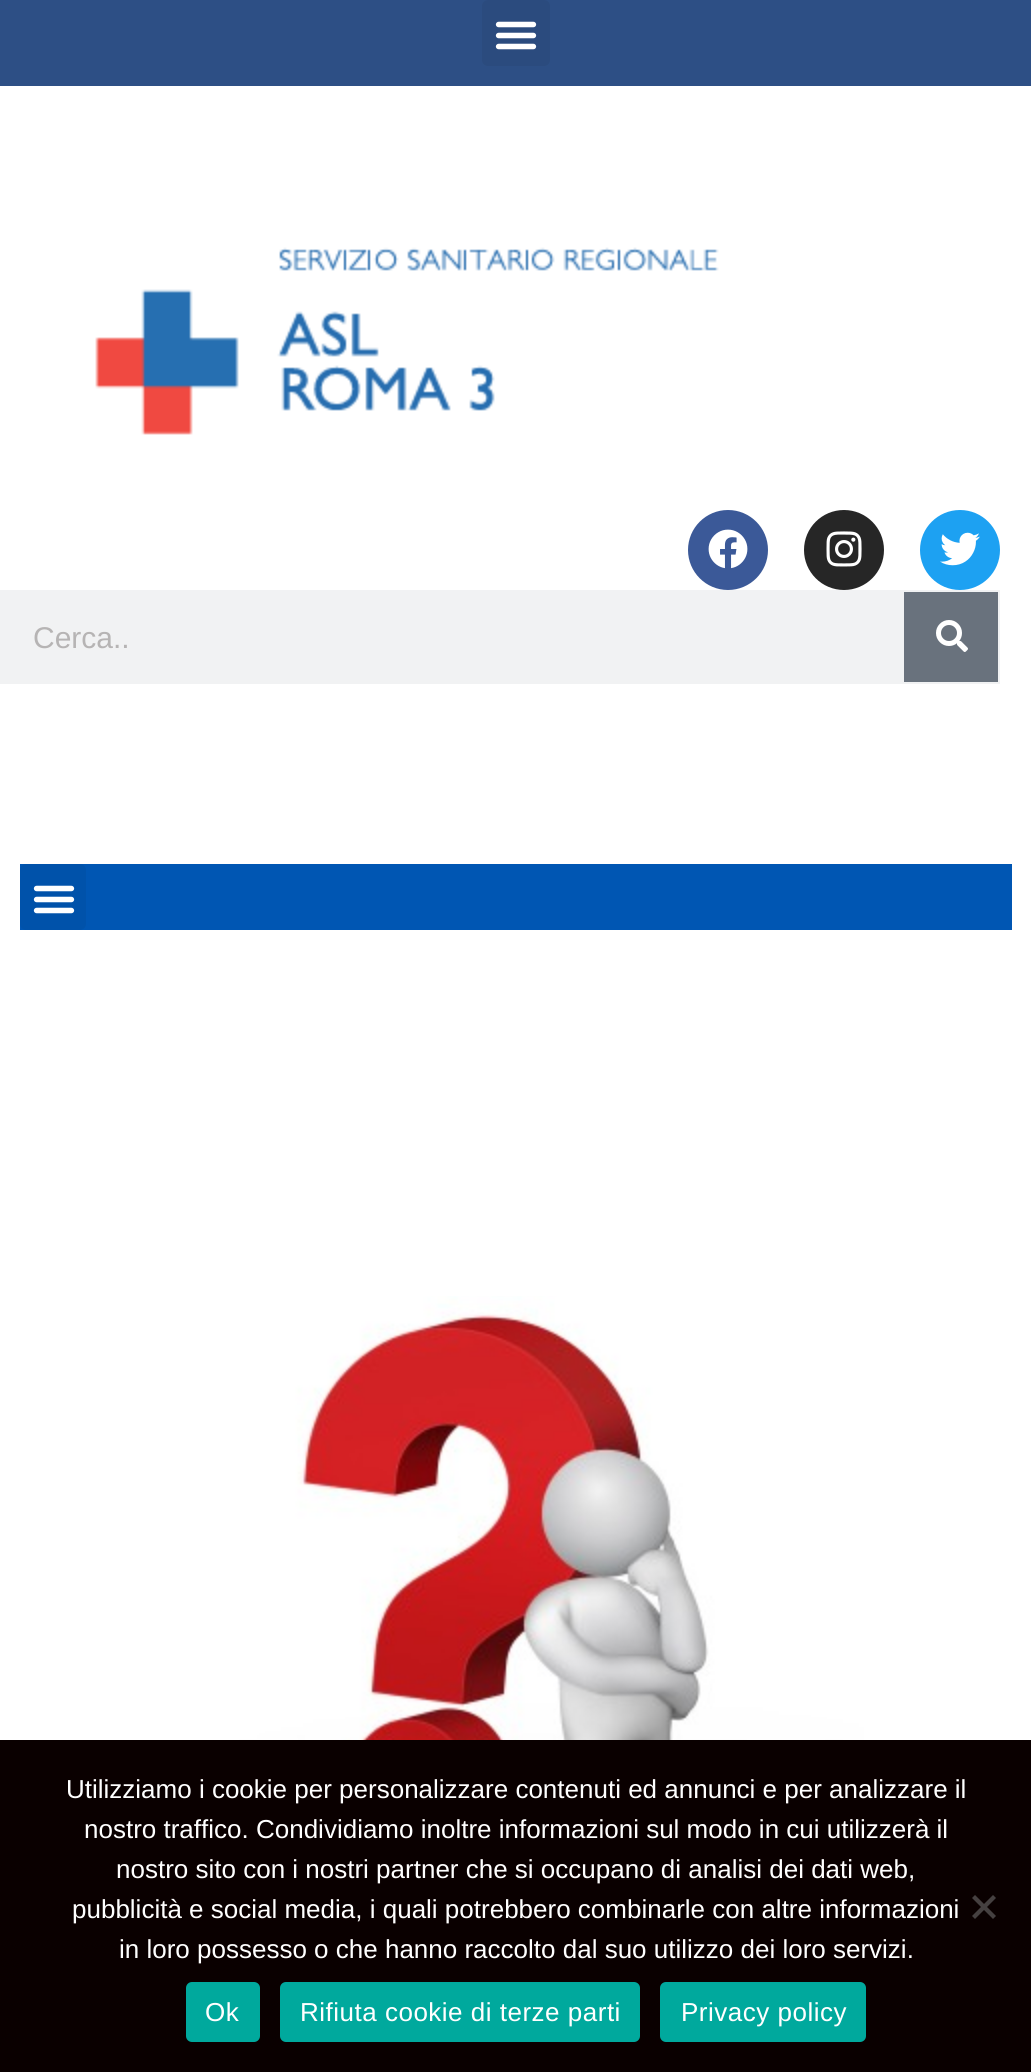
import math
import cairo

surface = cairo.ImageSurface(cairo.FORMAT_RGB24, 1031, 2072)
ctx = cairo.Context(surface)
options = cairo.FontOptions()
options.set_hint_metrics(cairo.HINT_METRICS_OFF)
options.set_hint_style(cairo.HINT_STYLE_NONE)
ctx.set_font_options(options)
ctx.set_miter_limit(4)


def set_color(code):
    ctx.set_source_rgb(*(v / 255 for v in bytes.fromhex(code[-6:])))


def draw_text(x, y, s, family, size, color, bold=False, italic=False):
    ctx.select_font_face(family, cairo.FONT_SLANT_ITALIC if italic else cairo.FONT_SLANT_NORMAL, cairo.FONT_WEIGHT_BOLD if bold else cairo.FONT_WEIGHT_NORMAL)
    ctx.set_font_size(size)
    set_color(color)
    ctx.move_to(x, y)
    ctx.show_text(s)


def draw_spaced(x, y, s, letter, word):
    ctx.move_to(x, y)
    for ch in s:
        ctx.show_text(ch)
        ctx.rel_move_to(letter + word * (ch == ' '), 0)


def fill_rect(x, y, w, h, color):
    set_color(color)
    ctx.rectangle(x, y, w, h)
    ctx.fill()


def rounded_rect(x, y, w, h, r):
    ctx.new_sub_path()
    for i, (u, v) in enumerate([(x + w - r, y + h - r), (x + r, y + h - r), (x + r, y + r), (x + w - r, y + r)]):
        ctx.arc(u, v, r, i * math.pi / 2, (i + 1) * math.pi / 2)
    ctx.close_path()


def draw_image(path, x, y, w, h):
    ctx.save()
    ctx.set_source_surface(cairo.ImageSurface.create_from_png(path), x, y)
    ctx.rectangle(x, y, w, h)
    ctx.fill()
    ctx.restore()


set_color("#ffffff")
ctx.paint()
fill_rect(0, 0, 1031, 86, "#2d4f85")
set_color("#2b4b7e")
rounded_rect(482, 0, 68, 66, 6)
ctx.fill()
draw_image("assets/img1.png", 495, 21, 42, 29)
draw_image("assets/img2.png", 95, 247, 624, 188)
set_color("#3b5998")
ctx.arc(728, 550, 40, 0, 2 * math.pi)
ctx.fill()
draw_image("assets/img3.png", 708, 529, 40, 40)
set_color("#262626")
ctx.arc(844, 550, 40, 0, 2 * math.pi)
ctx.fill()
draw_image("assets/img4.png", 826, 531, 36, 36)
set_color("#1da1f2")
ctx.arc(960, 550, 40, 0, 2 * math.pi)
ctx.fill()
draw_image("assets/img5.png", 940, 532, 40, 34)
fill_rect(0, 590, 1000, 94, "#f1f2f3")
draw_text(33, 648, "Cerca..", "Liberation Sans", 30, "#b6b4b4")
fill_rect(904, 592, 94, 90, "#69727d")
draw_image("assets/img6.png", 936, 620, 32, 32)
fill_rect(20, 864, 992, 66, "#0056b3")
set_color("#0052aa")
rounded_rect(20, 864, 66, 66, 6)
ctx.fill()
draw_image("assets/img7.png", 33, 885, 42, 29)
draw_image("assets/img8.png", 193, 1296, 671, 444)
fill_rect(0, 1740, 1031, 332, "#0a0000")
draw_text(66, 1798, "Utilizziamo i cookie per personalizzare contenuti ed annunci e per analizzare il", "Liberation Sans", 26, "#ffffff")
draw_text(84, 1838, "nostro traffico. Condividiamo inoltre informazioni sul modo in cui utilizzerà il", "Liberation Sans", 26, "#ffffff")
draw_text(116, 1878, "nostro sito con i nostri partner che si occupano di analisi dei dati web,", "Liberation Sans", 26, "#ffffff")
draw_text(72, 1918, "pubblicità e social media, i quali potrebbero combinarle con altre informazioni", "Liberation Sans", 26, "#ffffff")
draw_text(119, 1958, "in loro possesso o che hanno raccolto dal suo utilizzo dei loro servizi.", "Liberation Sans", 26, "#ffffff")
set_color("#454040")
ctx.new_path()
ctx.move_to(993, 1895)
ctx.line_to(996, 1898)
ctx.line_to(975, 1919)
ctx.line_to(972, 1916)
ctx.close_path()
ctx.fill()
ctx.new_path()
ctx.move_to(972, 1898)
ctx.line_to(975, 1895)
ctx.line_to(996, 1916)
ctx.line_to(993, 1919)
ctx.close_path()
ctx.fill()
set_color("#00a99d")
rounded_rect(186, 1982, 74, 60, 6)
ctx.fill()
set_color("#ffffff")
draw_spaced(205, 2021, "Ok", 0.5, 0)
set_color("#00a99d")
rounded_rect(280, 1982, 360, 60, 6)
ctx.fill()
set_color("#ffffff")
draw_spaced(300, 2021, "Rifiuta cookie di terze parti", 0.5, 0)
set_color("#00a99d")
rounded_rect(660, 1982, 206, 60, 6)
ctx.fill()
set_color("#ffffff")
draw_spaced(681, 2021, "Privacy policy", 0.5, 0)
surface.write_to_png("output.png")
